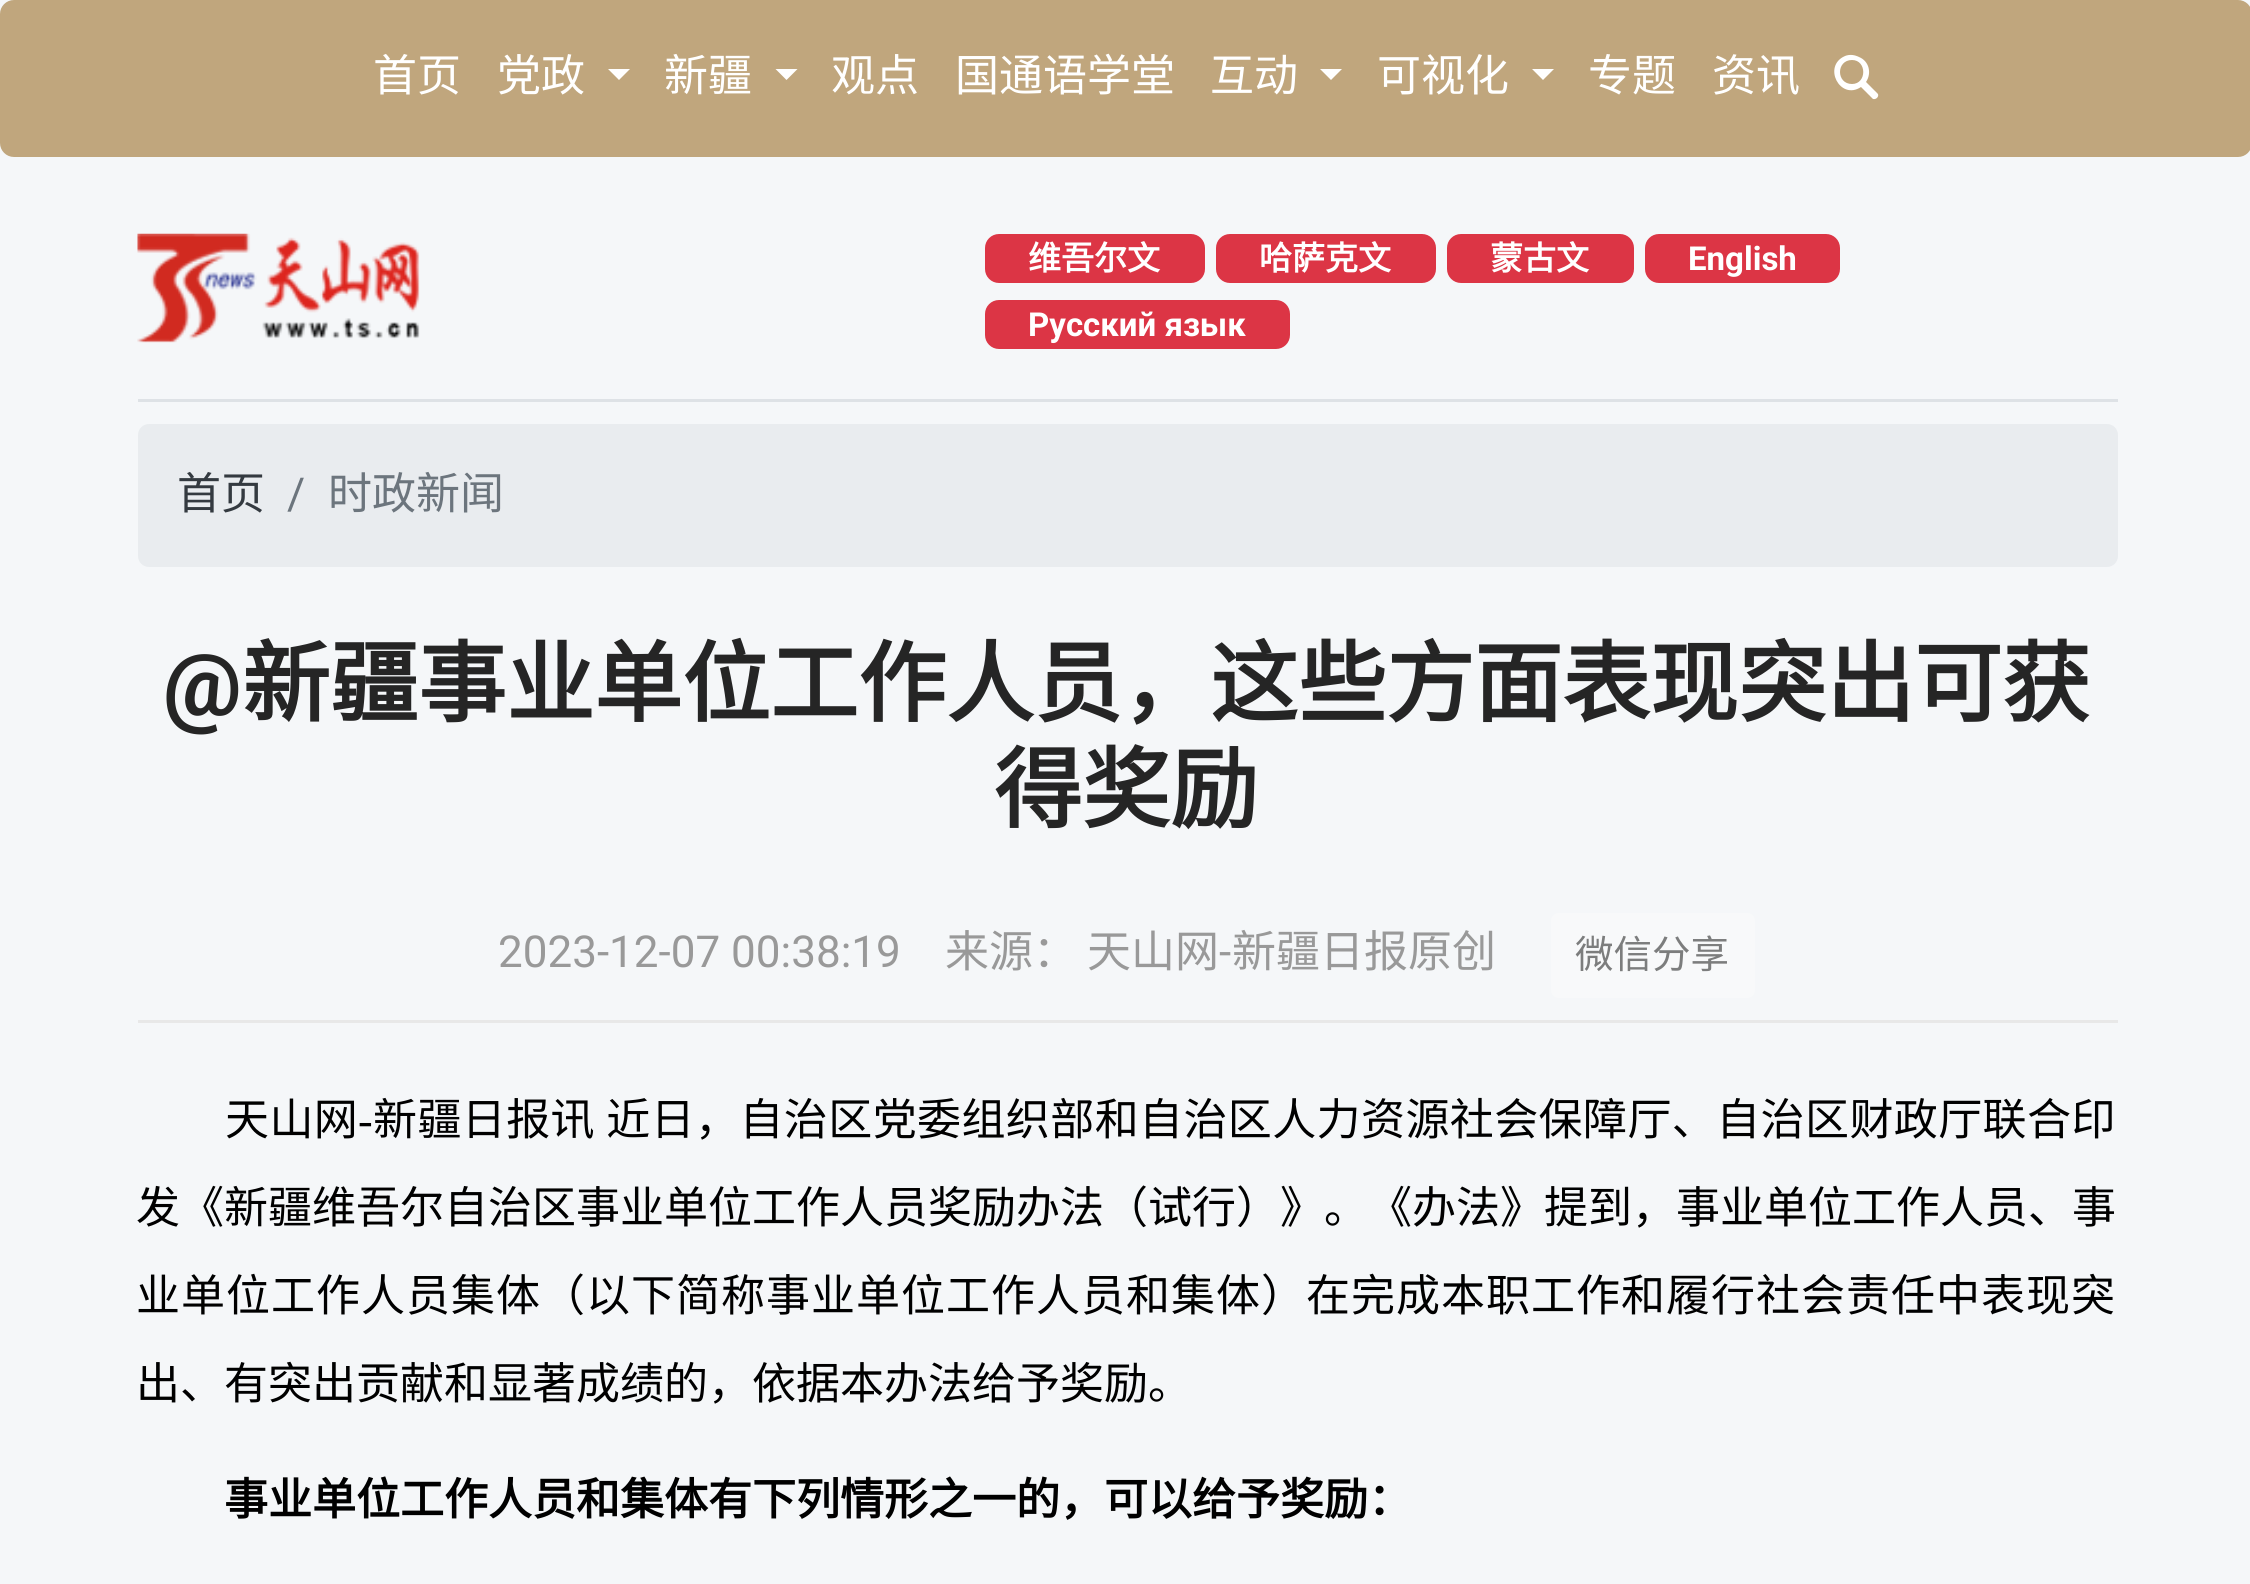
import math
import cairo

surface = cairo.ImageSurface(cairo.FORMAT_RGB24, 2250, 1584)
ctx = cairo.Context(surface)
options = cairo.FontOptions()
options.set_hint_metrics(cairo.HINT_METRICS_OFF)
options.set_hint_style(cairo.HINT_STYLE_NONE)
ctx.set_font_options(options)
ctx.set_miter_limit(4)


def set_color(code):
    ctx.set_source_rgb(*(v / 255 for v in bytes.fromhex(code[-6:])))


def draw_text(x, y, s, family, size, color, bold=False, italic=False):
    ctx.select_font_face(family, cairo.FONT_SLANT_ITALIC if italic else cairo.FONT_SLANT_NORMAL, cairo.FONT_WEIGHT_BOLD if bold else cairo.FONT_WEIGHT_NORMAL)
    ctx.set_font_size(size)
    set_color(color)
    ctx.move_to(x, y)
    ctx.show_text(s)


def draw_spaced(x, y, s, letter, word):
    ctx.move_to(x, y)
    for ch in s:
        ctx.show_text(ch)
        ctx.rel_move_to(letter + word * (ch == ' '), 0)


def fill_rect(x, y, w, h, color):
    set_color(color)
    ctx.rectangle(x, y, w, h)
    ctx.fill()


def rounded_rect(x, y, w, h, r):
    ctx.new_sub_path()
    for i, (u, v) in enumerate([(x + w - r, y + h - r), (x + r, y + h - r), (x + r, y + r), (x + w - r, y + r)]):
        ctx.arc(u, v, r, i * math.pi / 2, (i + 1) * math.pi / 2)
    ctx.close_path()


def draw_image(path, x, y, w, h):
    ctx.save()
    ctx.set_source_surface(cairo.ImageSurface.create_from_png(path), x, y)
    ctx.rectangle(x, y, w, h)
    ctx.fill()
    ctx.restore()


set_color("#f5f7f9")
ctx.paint()
set_color("#c0a67d")
rounded_rect(0, 0, 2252, 157, 14)
ctx.fill()
draw_text(373, 91, "首页", "Noto Sans CJK SC", 44, "#ffffff")
draw_text(497, 91, "党政", "Noto Sans CJK SC", 44, "#ffffff")
ctx.new_path()
ctx.move_to(608, 69)
ctx.line_to(630, 69)
ctx.line_to(619, 80)
ctx.close_path()
ctx.fill()
draw_text(664, 91, "新疆", "Noto Sans CJK SC", 44, "#ffffff")
ctx.new_path()
ctx.move_to(775.5, 69)
ctx.line_to(797.5, 69)
ctx.line_to(786.5, 80)
ctx.close_path()
ctx.fill()
draw_text(831, 91, "观点", "Noto Sans CJK SC", 44, "#ffffff")
draw_text(955, 91, "国通语学堂", "Noto Sans CJK SC", 44, "#ffffff")
draw_text(1210, 91, "互动", "Noto Sans CJK SC", 44, "#ffffff")
ctx.new_path()
ctx.move_to(1320, 69)
ctx.line_to(1342, 69)
ctx.line_to(1331, 80)
ctx.close_path()
ctx.fill()
draw_text(1377, 91, "可视化", "Noto Sans CJK SC", 44, "#ffffff")
ctx.new_path()
ctx.move_to(1532, 69)
ctx.line_to(1554, 69)
ctx.line_to(1543, 80)
ctx.close_path()
ctx.fill()
draw_text(1588, 91, "专题", "Noto Sans CJK SC", 44, "#ffffff")
draw_text(1712, 91, "资讯", "Noto Sans CJK SC", 44, "#ffffff")
ctx.new_path()
ctx.move_to(1877, 93)
ctx.line_to(1866, 82)
ctx.curve_to(1872, 73, 1869, 61, 1859, 57)
ctx.curve_to(1855, 55, 1850, 54, 1845, 56)
ctx.curve_to(1822, 66, 1840, 101, 1861, 87)
ctx.line_to(1873, 99)
ctx.curve_to(1877, 100, 1880, 95, 1877, 93)
ctx.close_path()
ctx.move_to(1852, 84)
ctx.curve_to(1836, 84, 1836, 60, 1852, 60)
ctx.curve_to(1867, 60, 1867, 84, 1852, 84)
ctx.close_path()
ctx.fill()
draw_image("assets/img1.png", 137, 233, 283, 110)
set_color("#dc3545")
rounded_rect(985, 234, 220, 49, 14)
ctx.fill()
draw_text(1028, 270, "维吾尔文", "Noto Sans CJK SC", 33, "#ffffff", bold=True)
set_color("#dc3545")
rounded_rect(1216, 234, 220, 49, 14)
ctx.fill()
draw_text(1259, 270, "哈萨克文", "Noto Sans CJK SC", 33, "#ffffff", bold=True)
set_color("#dc3545")
rounded_rect(1447, 234, 187, 49, 14)
ctx.fill()
draw_text(1490, 270, "蒙古文", "Noto Sans CJK SC", 33, "#ffffff", bold=True)
set_color("#dc3545")
rounded_rect(1645, 234, 195, 49, 14)
ctx.fill()
draw_text(1688, 270, "English", "Roboto", 33, "#ffffff", bold=True)
set_color("#dc3545")
rounded_rect(985, 300, 305, 49, 14)
ctx.fill()
draw_text(1028, 336, "Русский язык", "Roboto", 33, "#ffffff", bold=True)
fill_rect(138, 399, 1980, 3, "#dee2e6")
set_color("#e9ecef")
rounded_rect(138, 424, 1980, 143, 11)
ctx.fill()
draw_text(177, 509, "首页", "Noto Sans CJK SC", 44, "#343a40")
draw_text(287, 509, "/", "Roboto", 44, "#6c757d")
draw_text(328, 509, "时政新闻", "Noto Sans CJK SC", 44, "#6c757d")
draw_text(163, 715, "@", "Roboto", 88, "#252525", bold=True)
draw_text(242, 715, "新疆事业单位工作人员，这些方面表现突出可获", "Noto Sans CJK SC", 88, "#252525", bold=True)
draw_text(994, 821, "得奖励", "Noto Sans CJK SC", 88, "#252525", bold=True)
fill_rect(138, 1020, 1980, 3, "#e8e8e8")
draw_text(498, 967, "2023-12-07 00:38:19", "Roboto", 44, "#999999")
draw_text(945, 967, "来源：", "Noto Sans CJK SC", 44, "#999999")
draw_text(1087, 967, "天山网", "Noto Sans CJK SC", 44, "#999999")
draw_text(1219, 967, "-", "Roboto", 44, "#999999")
draw_text(1232, 967, "新疆日报原创", "Noto Sans CJK SC", 44, "#999999")
set_color("#f8f9fa")
rounded_rect(1551, 913, 204, 85, 8)
ctx.fill()
draw_text(1575, 968, "微信分享", "Noto Sans CJK SC", 38.5, "#7c7d7d")
ctx.set_font_size(44)
set_color("#000000")
draw_spaced(225, 1135, "天山网", 0.4, 0)
ctx.select_font_face("Liberation Serif")
draw_spaced(358, 1135, "-", 0.4, 0)
ctx.select_font_face("Noto Sans CJK SC")
draw_spaced(373, 1135, "新疆日报讯 近日，自治区党委组织部和自治区人力资源社会保障厅、自治区财政厅联合印", 0.4, 1)
draw_text(136, 1223, "发《新疆维吾尔自治区事业单位工作人员奖励办法（试行）》。《办法》提到，事业单位工作人员、事", "Noto Sans CJK SC", 44, "#000000")
draw_spaced(136, 1311, "业单位工作人员集体（以下简称事业单位工作人员和集体）在完成本职工作和履行社会责任中表现突", 1, 0)
draw_text(136, 1399, "出、有突出贡献和显著成绩的，依据本办法给予奖励。", "Noto Sans CJK SC", 44, "#000000")
draw_text(224, 1515, "事业单位工作人员和集体有下列情形之一的，可以给予奖励：", "Noto Sans CJK SC", 44, "#000000", bold=True)
surface.write_to_png("output.png")
